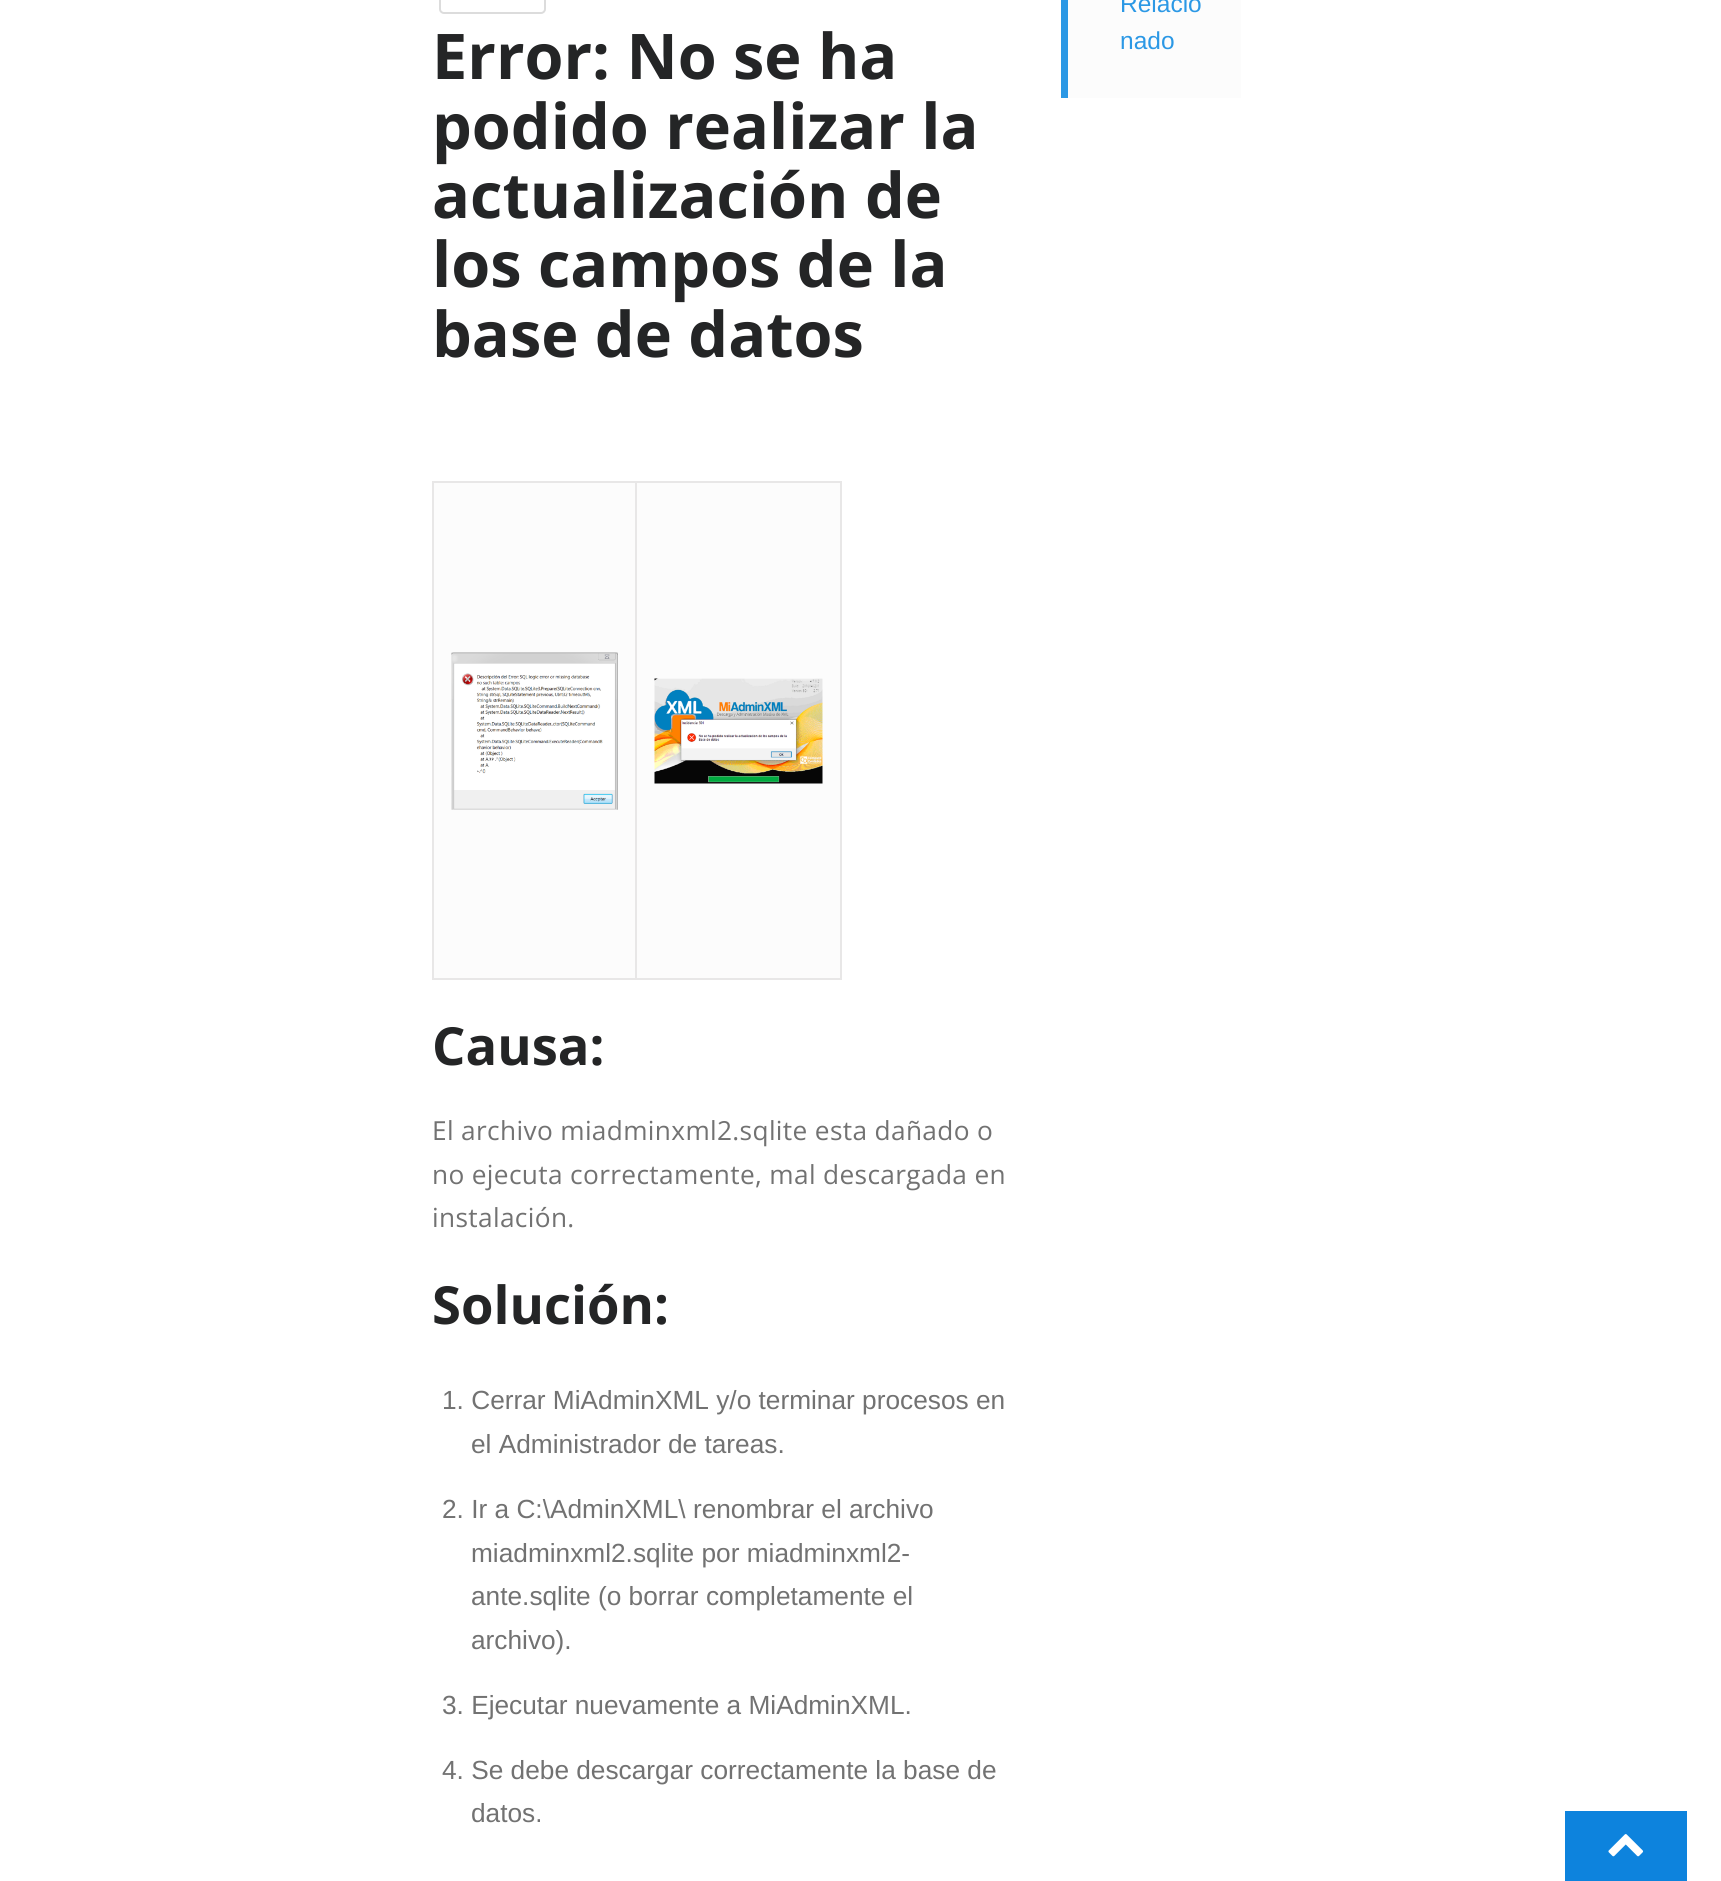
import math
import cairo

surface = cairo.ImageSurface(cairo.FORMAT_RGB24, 1721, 1881)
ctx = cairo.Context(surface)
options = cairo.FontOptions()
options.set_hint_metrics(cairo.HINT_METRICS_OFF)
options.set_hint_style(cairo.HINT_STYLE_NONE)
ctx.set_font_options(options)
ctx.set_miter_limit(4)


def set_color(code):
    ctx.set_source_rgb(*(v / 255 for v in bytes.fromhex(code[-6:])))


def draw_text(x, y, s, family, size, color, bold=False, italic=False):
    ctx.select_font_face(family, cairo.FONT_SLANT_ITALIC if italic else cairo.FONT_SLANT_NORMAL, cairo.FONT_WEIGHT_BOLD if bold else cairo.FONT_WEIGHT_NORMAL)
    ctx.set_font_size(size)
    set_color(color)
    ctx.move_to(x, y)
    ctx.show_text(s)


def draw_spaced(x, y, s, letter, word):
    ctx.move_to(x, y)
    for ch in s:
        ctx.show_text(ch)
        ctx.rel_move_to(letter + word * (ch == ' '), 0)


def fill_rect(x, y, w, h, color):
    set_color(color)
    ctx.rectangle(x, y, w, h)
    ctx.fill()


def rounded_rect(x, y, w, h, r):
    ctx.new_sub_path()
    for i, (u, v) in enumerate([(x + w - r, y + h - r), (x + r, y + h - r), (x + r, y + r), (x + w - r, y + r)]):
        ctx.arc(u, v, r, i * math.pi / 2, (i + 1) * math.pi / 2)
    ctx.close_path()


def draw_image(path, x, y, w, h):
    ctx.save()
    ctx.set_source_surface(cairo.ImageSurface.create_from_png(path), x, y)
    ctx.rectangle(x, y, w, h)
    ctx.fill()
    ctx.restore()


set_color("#ffffff")
ctx.paint()
fill_rect(1068, 0, 173, 98, "#fcfcfc")
fill_rect(1061, 0, 7, 98, "#2b98e5")
draw_text(1120, 12, "Relacio", "Liberation Sans", 24.5, "#2b98e5")
draw_text(1120, 49, "nado", "Liberation Sans", 24.5, "#2b98e5")
rounded_rect(440, -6, 105, 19, 4)
set_color("#dcdcdc")
ctx.stroke()
draw_text(432, 79, "Error: No se ha", "Open Sans", 63, "#242526", bold=True)
draw_text(432, 149, "podido realizar la", "Open Sans", 63, "#242526", bold=True)
draw_text(432, 218, "actualización de", "Open Sans", 63, "#242526", bold=True)
draw_text(432, 287, "los campos de la", "Open Sans", 63, "#242526", bold=True)
draw_text(432, 357, "base de datos", "Open Sans", 63, "#242526", bold=True)
fill_rect(434, 483, 406, 495, "#fcfcfc")
fill_rect(635, 481, 207, 2, "#e8e7e7")
fill_rect(840, 481, 2, 499, "#e8e7e7")
fill_rect(635, 978, 207, 2, "#e8e7e7")
fill_rect(635, 481, 2, 499, "#e8e7e7")
fill_rect(432, 481, 205, 2, "#e8e7e7")
fill_rect(432, 978, 205, 2, "#e8e7e7")
fill_rect(432, 481, 2, 499, "#e8e7e7")
draw_image("assets/img1.png", 451, 652, 167, 158)
draw_image("assets/img2.png", 654, 678, 169, 106)
draw_text(432, 1065, "Causa:", "Open Sans", 52.5, "#242526", bold=True)
ctx.select_font_face("Open Sans")
ctx.set_font_size(26.25)
set_color("#727272")
draw_spaced(432, 1140, "El archivo miadminxml2.sqlite esta dañado o", 0.35, 0)
draw_spaced(432, 1184, "no ejecuta correctamente, mal descargada en", 0.35, 0)
draw_spaced(432, 1227, "instalación.", 0.35, 0)
draw_text(432, 1324, "Solución:", "Open Sans", 52.5, "#242526", bold=True)
draw_text(442, 1409, "1. Cerrar MiAdminXML y/o terminar procesos en", "Liberation Sans", 26.25, "#727272")
draw_text(471, 1453, "el Administrador de tareas.", "Liberation Sans", 26.25, "#727272")
draw_text(442, 1518, "2. Ir a C:\\AdminXML\\ renombrar el archivo", "Liberation Sans", 26.25, "#727272")
draw_text(471, 1562, "miadminxml2.sqlite por miadminxml2-", "Liberation Sans", 26.25, "#727272")
draw_text(471, 1605, "ante.sqlite (o borrar completamente el", "Liberation Sans", 26.25, "#727272")
draw_text(471, 1649, "archivo).", "Liberation Sans", 26.25, "#727272")
draw_text(442, 1714, "3. Ejecutar nuevamente a MiAdminXML.", "Liberation Sans", 26.25, "#727272")
draw_text(442, 1779, "4. Se debe descargar correctamente la base de", "Liberation Sans", 26.25, "#727272")
draw_text(471, 1822, "datos.", "Liberation Sans", 26.25, "#727272")
fill_rect(1565, 1811, 122, 70, "#0d83dd")
draw_image("assets/img3.png", 1608, 1834, 36, 23)
surface.write_to_png("output.png")
